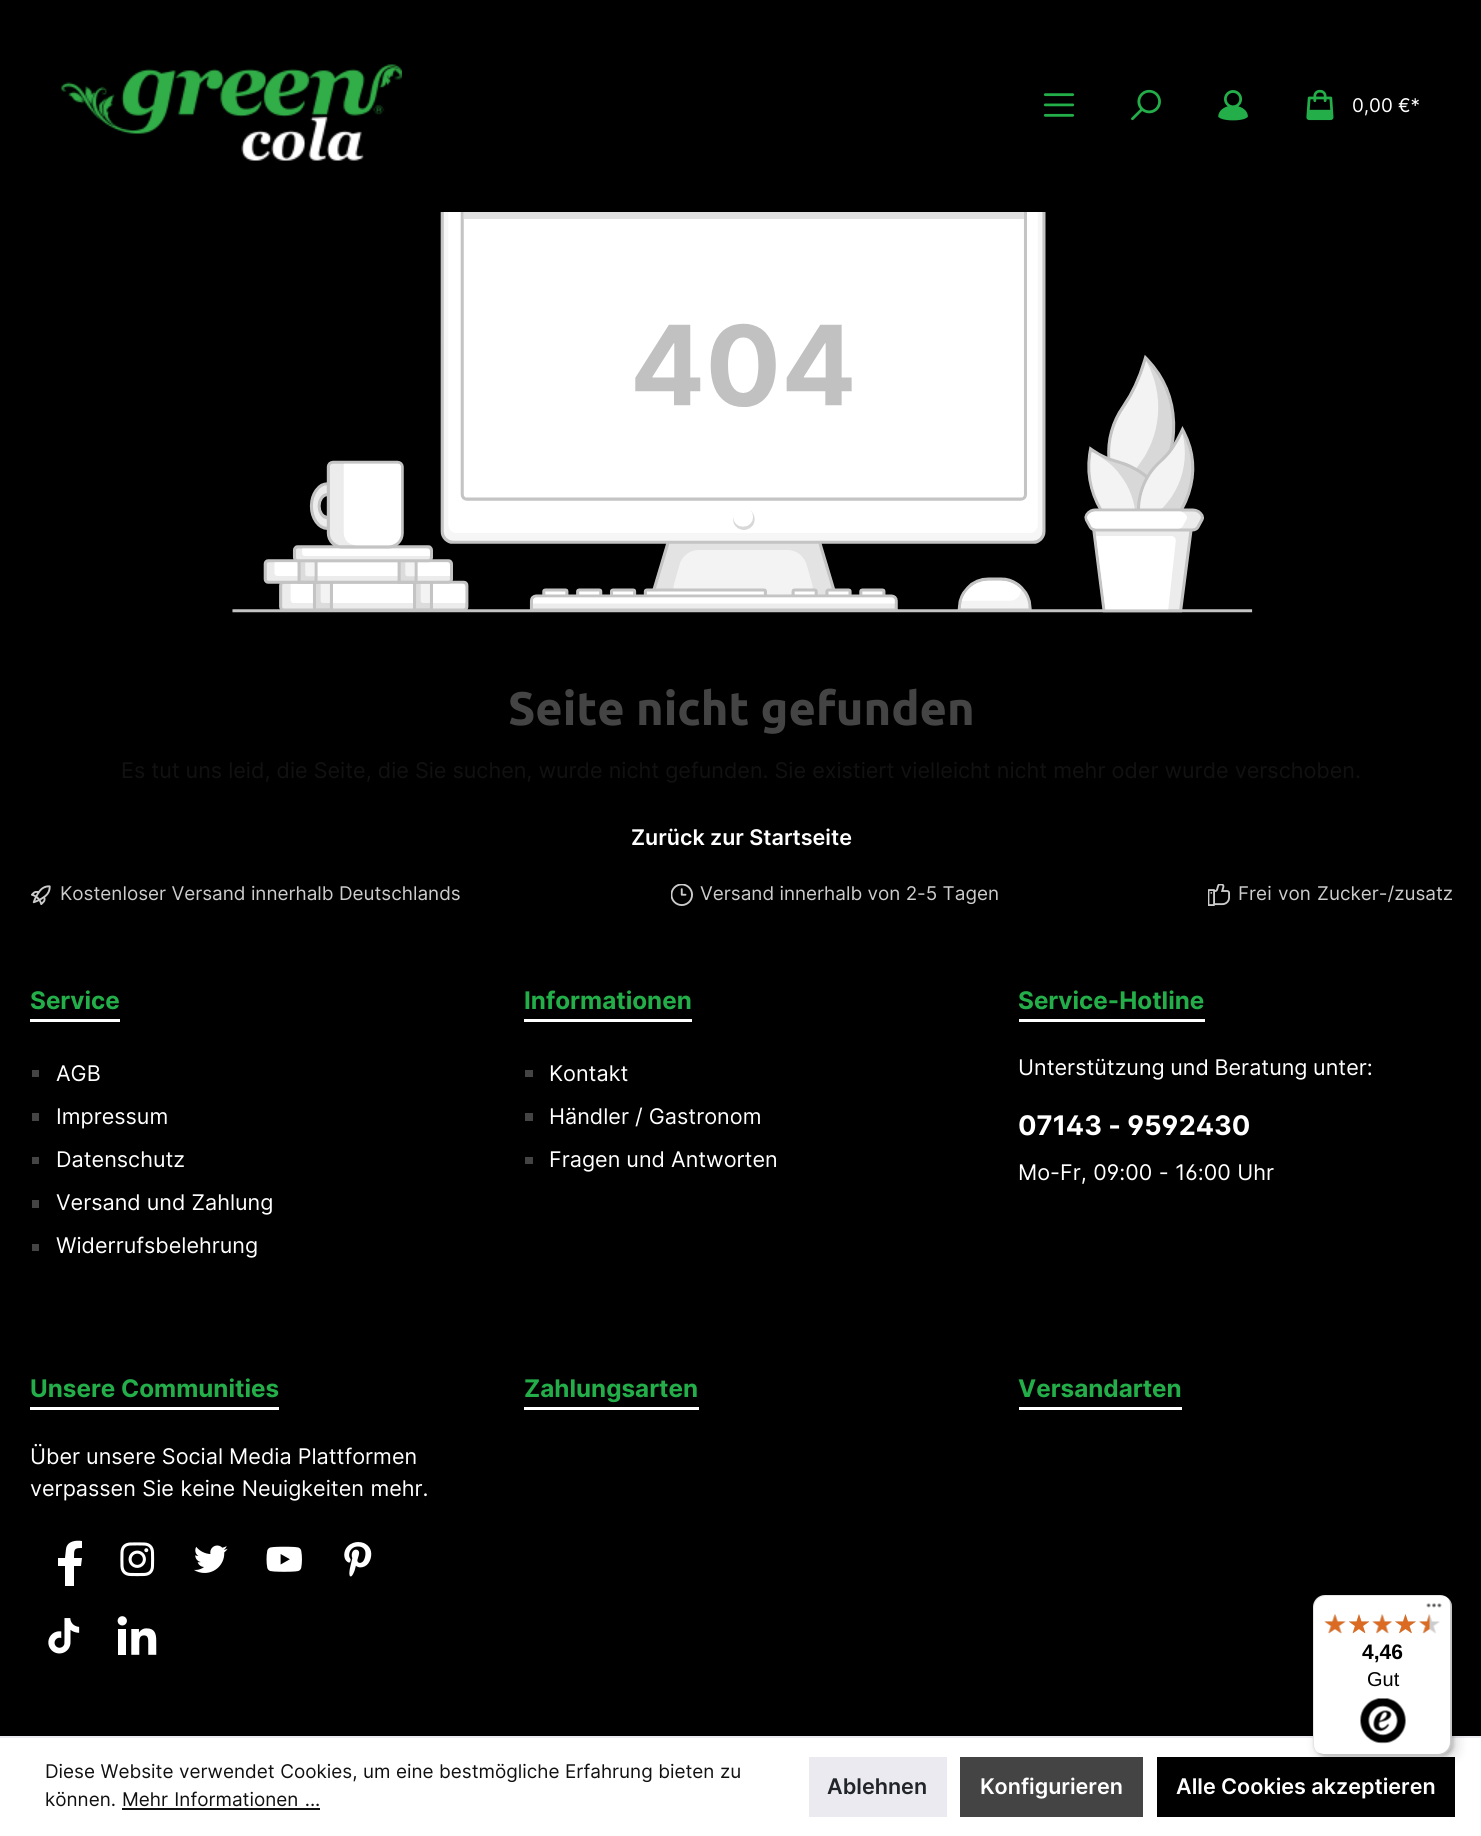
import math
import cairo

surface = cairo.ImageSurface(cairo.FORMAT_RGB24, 1481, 1836)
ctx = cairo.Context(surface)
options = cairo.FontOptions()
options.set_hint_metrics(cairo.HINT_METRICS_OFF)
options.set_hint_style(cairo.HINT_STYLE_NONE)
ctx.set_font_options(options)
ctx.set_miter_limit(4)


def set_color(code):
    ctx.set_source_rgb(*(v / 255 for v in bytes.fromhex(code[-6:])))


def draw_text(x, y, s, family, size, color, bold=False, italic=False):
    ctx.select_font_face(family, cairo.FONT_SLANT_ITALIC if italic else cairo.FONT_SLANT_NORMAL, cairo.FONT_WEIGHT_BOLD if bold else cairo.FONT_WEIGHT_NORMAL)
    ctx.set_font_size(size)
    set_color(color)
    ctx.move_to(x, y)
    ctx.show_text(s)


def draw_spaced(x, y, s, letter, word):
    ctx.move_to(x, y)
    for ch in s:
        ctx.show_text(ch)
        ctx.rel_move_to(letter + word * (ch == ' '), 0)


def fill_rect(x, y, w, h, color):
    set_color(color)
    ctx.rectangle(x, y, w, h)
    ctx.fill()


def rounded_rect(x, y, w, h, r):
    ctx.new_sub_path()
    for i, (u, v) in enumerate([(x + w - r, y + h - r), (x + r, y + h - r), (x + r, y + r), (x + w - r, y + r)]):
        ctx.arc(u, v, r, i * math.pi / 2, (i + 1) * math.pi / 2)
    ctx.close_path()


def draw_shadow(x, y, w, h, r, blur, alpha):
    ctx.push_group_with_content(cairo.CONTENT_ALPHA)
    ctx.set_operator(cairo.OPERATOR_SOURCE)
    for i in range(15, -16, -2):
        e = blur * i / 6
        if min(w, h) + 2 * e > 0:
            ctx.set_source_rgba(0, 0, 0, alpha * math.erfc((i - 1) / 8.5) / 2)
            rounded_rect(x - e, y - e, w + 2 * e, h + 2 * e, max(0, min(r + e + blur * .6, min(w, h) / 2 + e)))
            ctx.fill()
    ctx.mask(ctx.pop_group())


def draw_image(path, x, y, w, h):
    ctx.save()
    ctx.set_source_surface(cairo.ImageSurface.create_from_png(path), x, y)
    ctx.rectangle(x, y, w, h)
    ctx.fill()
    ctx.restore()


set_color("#000000")
ctx.paint()
draw_image("assets/img1.png", 61, 64, 341, 97)
draw_image("assets/img2.png", 1043, 93, 32, 24)
draw_image("assets/img3.png", 1131, 89, 30, 32)
draw_image("assets/img4.png", 1218, 90, 30, 31)
draw_image("assets/img5.png", 1306, 89, 28, 32)
draw_text(1352, 112, "0,00 €*", "Inter", 18.9, "#ffffff")
draw_image("assets/img6.png", 232, 212, 1021, 401)
draw_text(508, 725, "Seite nicht gefunden", "Ubuntu", 47, "#444444", bold=True)
draw_text(121, 778, "Es tut uns leid, die Seite, die Sie suchen, wurde nicht gefunden. Sie existiert vielleicht nicht mehr oder wurde verschoben.", "Inter", 21.6, "#111111")
draw_text(631, 845, "Zurück zur Startseite", "Inter SemiBold", 21.6, "#ffffff")
draw_image("assets/img7.png", 31, 885, 20, 20)
draw_text(60, 900, "Kostenloser Versand innerhalb Deutschlands", "Inter", 18.9, "#cccccc")
draw_image("assets/img8.png", 671, 884, 22, 22)
draw_text(700, 900, "Versand innerhalb von 2-5 Tagen", "Inter", 18.9, "#cccccc")
draw_image("assets/img9.png", 1208, 884, 22, 22)
draw_spaced(1238, 900, "Frei von Zucker-/zusatz", 0, 1)
fill_rect(30, 1019, 90, 3, "#ffffff")
draw_text(30, 1009, "Service", "Inter", 24.25, "#23ae49", bold=True)
fill_rect(32, 1070, 7, 7, "#444444")
draw_text(56, 1081, "AGB", "Inter", 21.6, "#ffffff")
fill_rect(32, 1113, 7, 8, "#444444")
draw_text(56, 1124, "Impressum", "Inter", 21.6, "#ffffff")
fill_rect(32, 1157, 7, 7, "#444444")
draw_text(56, 1167, "Datenschutz", "Inter", 21.6, "#ffffff")
fill_rect(32, 1200, 7, 8, "#444444")
draw_text(56, 1210, "Versand und Zahlung", "Inter", 21.6, "#ffffff")
fill_rect(32, 1244, 7, 7, "#444444")
draw_text(56, 1253, "Widerrufsbelehrung", "Inter", 21.6, "#ffffff")
fill_rect(524, 1019, 168, 3, "#ffffff")
draw_text(524, 1009, "Informationen", "Inter", 24.25, "#23ae49", bold=True)
fill_rect(525, 1070, 8, 7, "#444444")
draw_text(549, 1081, "Kontakt", "Inter", 21.6, "#ffffff")
fill_rect(525, 1113, 8, 8, "#444444")
draw_text(549, 1124, "Händler / Gastronom", "Inter", 21.6, "#ffffff")
fill_rect(525, 1157, 8, 7, "#444444")
draw_text(549, 1167, "Fragen und Antworten", "Inter", 21.6, "#ffffff")
fill_rect(1019, 1019, 186, 3, "#ffffff")
draw_text(1018, 1009, "Service-Hotline", "Inter", 24.25, "#23ae49", bold=True)
ctx.select_font_face("Inter")
ctx.set_font_size(21.6)
set_color("#ffffff")
draw_spaced(1018, 1075, "Unterstützung und Beratung unter:", 0, -0.5)
draw_text(1018, 1135, "07143 - 9592430", "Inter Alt", 27, "#ffffff", bold=True)
ctx.select_font_face("Inter Alt")
ctx.set_font_size(21.6)
draw_spaced(1018, 1180, "Mo-Fr, 09:00 - 16:00 Uhr", 0, 0.5)
fill_rect(30, 1407, 249, 3, "#ffffff")
draw_text(30, 1397, "Unsere Communities", "Inter", 24.25, "#23ae49", bold=True)
draw_text(30, 1464, "Über unsere Social Media Plattformen", "Inter", 21.6, "#ffffff")
draw_spaced(30, 1496, "verpassen Sie keine Neuigkeiten mehr.", 0, 0.5)
ctx.new_path()
ctx.move_to(81, 1566)
ctx.line_to(82, 1558)
ctx.line_to(74, 1558)
ctx.curve_to(74, 1549, 74, 1548, 82, 1548)
ctx.line_to(82, 1541)
ctx.curve_to(76, 1540, 67, 1541, 66, 1549)
ctx.line_to(65, 1558)
ctx.line_to(58, 1558)
ctx.line_to(58, 1566)
ctx.line_to(65, 1566)
ctx.line_to(65, 1586)
ctx.line_to(74, 1586)
ctx.line_to(74, 1566)
ctx.close_path()
ctx.fill()
draw_image("assets/img10.png", 120, 1542, 35, 35)
draw_image("assets/img11.png", 194, 1545, 34, 28)
draw_image("assets/img12.png", 266, 1546, 36, 26)
draw_image("assets/img13.png", 344, 1542, 28, 35)
draw_image("assets/img14.png", 48, 1618, 32, 36)
draw_image("assets/img15.png", 117, 1616, 40, 39)
fill_rect(524, 1407, 175, 3, "#ffffff")
draw_text(524, 1397, "Zahlungsarten", "Inter", 24.25, "#23ae49", bold=True)
fill_rect(1019, 1407, 163, 3, "#ffffff")
draw_text(1018, 1397, "Versandarten", "Inter", 24.25, "#23ae49", bold=True)
fill_rect(0, 1738, 1481, 98, "#ffffff")
fill_rect(0, 1736, 1481, 2, "#eaeaf0")
fill_rect(1157, 1757, 298, 60, "#000000")
set_color("#000000")
draw_shadow(1317, 1599, 140, 161, 12, 6, 0.15)
draw_shadow(1314, 1596, 140, 161, 12, 1.5, 0.15)
set_color("#ffffff")
rounded_rect(1313, 1595, 139, 160, 12)
ctx.fill()
ctx.set_source_rgba(0, 0, 0, 0.1)
ctx.new_path()
ctx.move_to(1326, 1596)
ctx.line_to(1442, 1596)
ctx.line_to(1447, 1597)
ctx.curve_to(1445, 1596, 1442, 1595, 1440, 1595)
ctx.line_to(1325, 1595)
ctx.curve_to(1318, 1595, 1313, 1600, 1313, 1607)
ctx.line_to(1313, 1743)
ctx.curve_to(1313, 1746, 1314, 1749, 1316, 1751)
ctx.curve_to(1315, 1749, 1314, 1747, 1314, 1744)
ctx.line_to(1314, 1608)
ctx.curve_to(1314, 1601, 1319, 1596, 1326, 1596)
ctx.close_path()
ctx.fill()
ctx.set_source_rgba(0, 0, 0, 0.2)
ctx.new_path()
ctx.move_to(1319, 1753)
ctx.curve_to(1320, 1754, 1323, 1755, 1325, 1755)
ctx.line_to(1440, 1755)
ctx.curve_to(1447, 1755, 1452, 1750, 1452, 1743)
ctx.line_to(1452, 1607)
ctx.curve_to(1452, 1603, 1450, 1600, 1448, 1598)
ctx.curve_to(1449, 1600, 1450, 1602, 1450, 1605)
ctx.line_to(1450, 1742)
ctx.curve_to(1450, 1748, 1445, 1754, 1438, 1754)
ctx.line_to(1323, 1754)
ctx.close_path()
ctx.fill()
ctx.set_source_rgba(0.196, 0.196, 0.196, 0.2)
ctx.new_path()
ctx.move_to(1317, 1752)
ctx.curve_to(1319, 1754, 1322, 1755, 1325, 1755)
ctx.line_to(1440, 1755)
ctx.curve_to(1447, 1755, 1452, 1750, 1452, 1743)
ctx.line_to(1452, 1607)
ctx.curve_to(1452, 1604, 1451, 1601, 1449, 1599)
ctx.curve_to(1450, 1601, 1451, 1603, 1451, 1606)
ctx.line_to(1451, 1742)
ctx.curve_to(1451, 1749, 1446, 1754, 1439, 1754)
ctx.line_to(1324, 1754)
ctx.curve_to(1321, 1754, 1319, 1753, 1317, 1752)
ctx.close_path()
ctx.fill()
ctx.set_source_rgba(1, 1, 1, 0.3)
ctx.new_path()
ctx.move_to(1317, 1752)
ctx.curve_to(1319, 1754, 1322, 1755, 1325, 1755)
ctx.line_to(1440, 1755)
ctx.curve_to(1447, 1755, 1452, 1750, 1452, 1743)
ctx.line_to(1452, 1607)
ctx.curve_to(1452, 1604, 1451, 1601, 1449, 1599)
ctx.curve_to(1450, 1601, 1451, 1603, 1451, 1606)
ctx.line_to(1451, 1742)
ctx.curve_to(1451, 1749, 1446, 1754, 1439, 1754)
ctx.line_to(1324, 1754)
ctx.curve_to(1321, 1754, 1319, 1753, 1317, 1752)
ctx.close_path()
ctx.fill()
draw_image("assets/img16.png", 1426, 1603, 16, 5)
draw_image("assets/img17.png", 1324, 1614, 22, 20)
draw_image("assets/img18.png", 1349, 1614, 20, 19)
draw_image("assets/img19.png", 1372, 1614, 20, 20)
draw_image("assets/img20.png", 1395, 1614, 21, 19)
draw_image("assets/img21.png", 1419, 1614, 21, 20)
draw_image("assets/img22.png", 1324, 1614, 22, 19)
draw_image("assets/img23.png", 1349, 1614, 20, 20)
draw_image("assets/img24.png", 1372, 1614, 20, 19)
draw_image("assets/img25.png", 1395, 1614, 21, 20)
draw_image("assets/img26.png", 1419, 1614, 11, 19)
draw_text(1362, 1659, "4,46", "Liberation Sans", 21, "#000000", bold=True)
draw_text(1367, 1686, "Gut", "Liberation Sans", 20, "#000000")
draw_image("assets/img27.png", 1360, 1698, 46, 46)
ctx.select_font_face("Inter")
ctx.set_font_size(18.9)
set_color("#111111")
draw_spaced(45, 1778, "Diese Website verwendet Cookies, um eine bestmögliche Erfahrung bieten zu", 0, 0.25)
draw_text(45, 1806, "können.", "Inter", 18.9, "#111111")
draw_spaced(122, 1806, "Mehr Informationen ...", 0, 1)
fill_rect(122, 1808, 198, 2, "#111111")
fill_rect(809, 1757, 138, 60, "#eaeaf0")
draw_text(827, 1794, "Ablehnen", "Inter SemiBold", 21.6, "#212529")
fill_rect(960, 1757, 183, 60, "#444444")
draw_text(980, 1794, "Konfigurieren", "Inter SemiBold", 21.6, "#ffffff")
draw_text(1176, 1794, "Alle Cookies akzeptieren", "Inter SemiBold", 21.6, "#ffffff")
surface.write_to_png("output.png")
